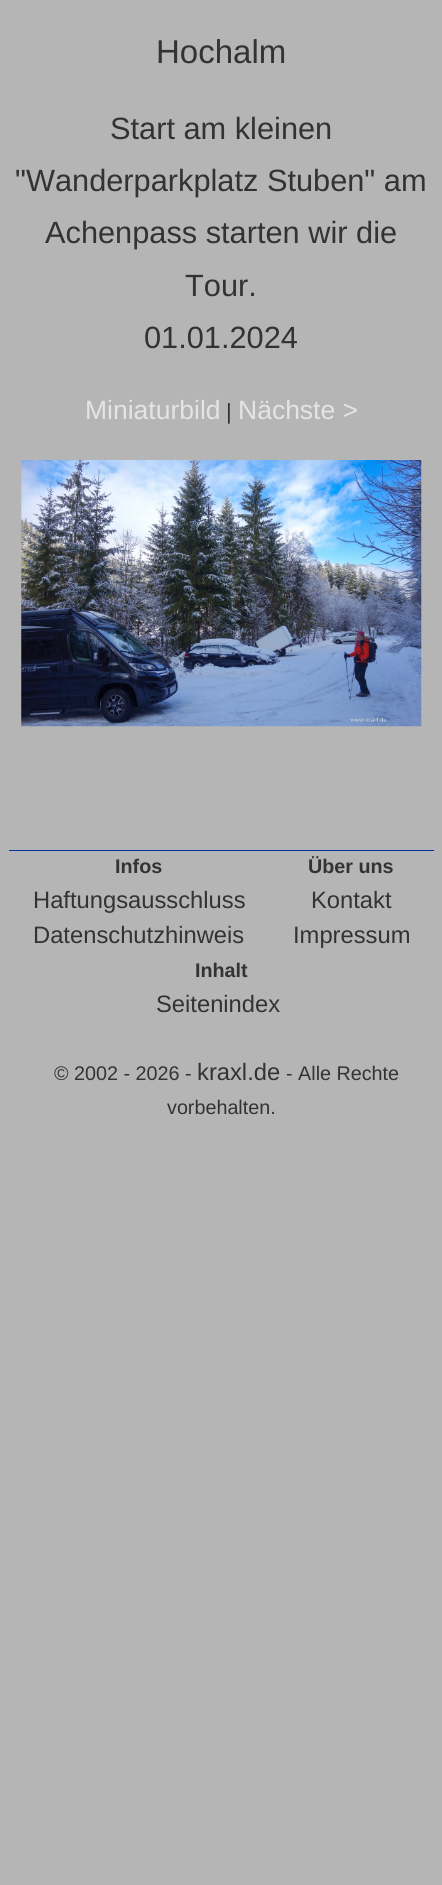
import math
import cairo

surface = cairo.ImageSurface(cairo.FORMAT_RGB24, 442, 1885)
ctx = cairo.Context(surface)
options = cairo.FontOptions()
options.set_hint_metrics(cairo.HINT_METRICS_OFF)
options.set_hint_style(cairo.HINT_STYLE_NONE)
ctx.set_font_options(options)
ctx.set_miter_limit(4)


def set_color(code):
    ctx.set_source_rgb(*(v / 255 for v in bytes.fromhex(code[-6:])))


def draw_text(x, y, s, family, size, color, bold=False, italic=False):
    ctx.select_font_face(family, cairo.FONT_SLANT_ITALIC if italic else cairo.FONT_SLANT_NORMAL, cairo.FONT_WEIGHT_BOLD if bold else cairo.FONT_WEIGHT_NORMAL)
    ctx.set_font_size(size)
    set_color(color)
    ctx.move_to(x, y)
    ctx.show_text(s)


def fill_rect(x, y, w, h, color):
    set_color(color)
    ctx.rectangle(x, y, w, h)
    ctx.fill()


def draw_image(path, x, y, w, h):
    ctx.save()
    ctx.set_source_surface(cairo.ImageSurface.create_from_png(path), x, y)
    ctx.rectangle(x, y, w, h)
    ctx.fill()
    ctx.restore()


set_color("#b5b5b5")
ctx.paint()
draw_text(156, 63, "Hochalm", "Liberation Sans", 33, "#333333")
draw_text(110, 139, "Start am kleinen", "Liberation Sans", 30.75, "#333333")
draw_text(15, 191, "\"Wanderparkplatz Stuben\" am", "Liberation Sans", 30.75, "#333333")
draw_text(45, 243, "Achenpass starten wir die", "Liberation Sans", 30.75, "#333333")
draw_text(185, 296, "Tour.", "Liberation Sans", 30.75, "#333333")
draw_text(144, 348, "01.01.2024", "Liberation Sans", 30.75, "#333333")
draw_text(85, 419, "Miniaturbild", "Liberation Sans", 26.5, "#e4e4e4")
draw_text(226, 419, "|", "Liberation Sans", 22, "#333333")
draw_text(238, 419, "Nächste >", "Liberation Sans", 26.5, "#e4e4e4")
draw_image("assets/img1.png", 21, 460, 401, 267)
fill_rect(9, 850, 425, 1, "#003399")
draw_text(115, 873, "Infos", "Liberation Sans", 19.75, "#333333", bold=True)
draw_text(33, 908, "Haftungsausschluss", "Liberation Sans", 23.75, "#333333")
draw_text(33, 943, "Datenschutzhinweis", "Liberation Sans", 23.75, "#333333")
draw_text(308, 873, "Über uns", "Liberation Sans", 19.75, "#333333", bold=True)
draw_text(311, 908, "Kontakt", "Liberation Sans", 23.75, "#333333")
draw_text(293, 943, "Impressum", "Liberation Sans", 23.75, "#333333")
draw_text(195, 977, "Inhalt", "Liberation Sans", 19.75, "#333333", bold=True)
draw_text(156, 1012, "Seitenindex", "Liberation Sans", 23.75, "#333333")
draw_text(54, 1080, "© 2002 - 2026 -", "Liberation Sans", 19.75, "#333333")
draw_text(197, 1080, "kraxl.de", "Liberation Sans", 23.75, "#333333")
draw_text(286, 1080, "- Alle Rechte", "Liberation Sans", 19.75, "#333333")
draw_text(167, 1114, "vorbehalten.", "Liberation Sans", 19.75, "#333333")
surface.write_to_png("output.png")
